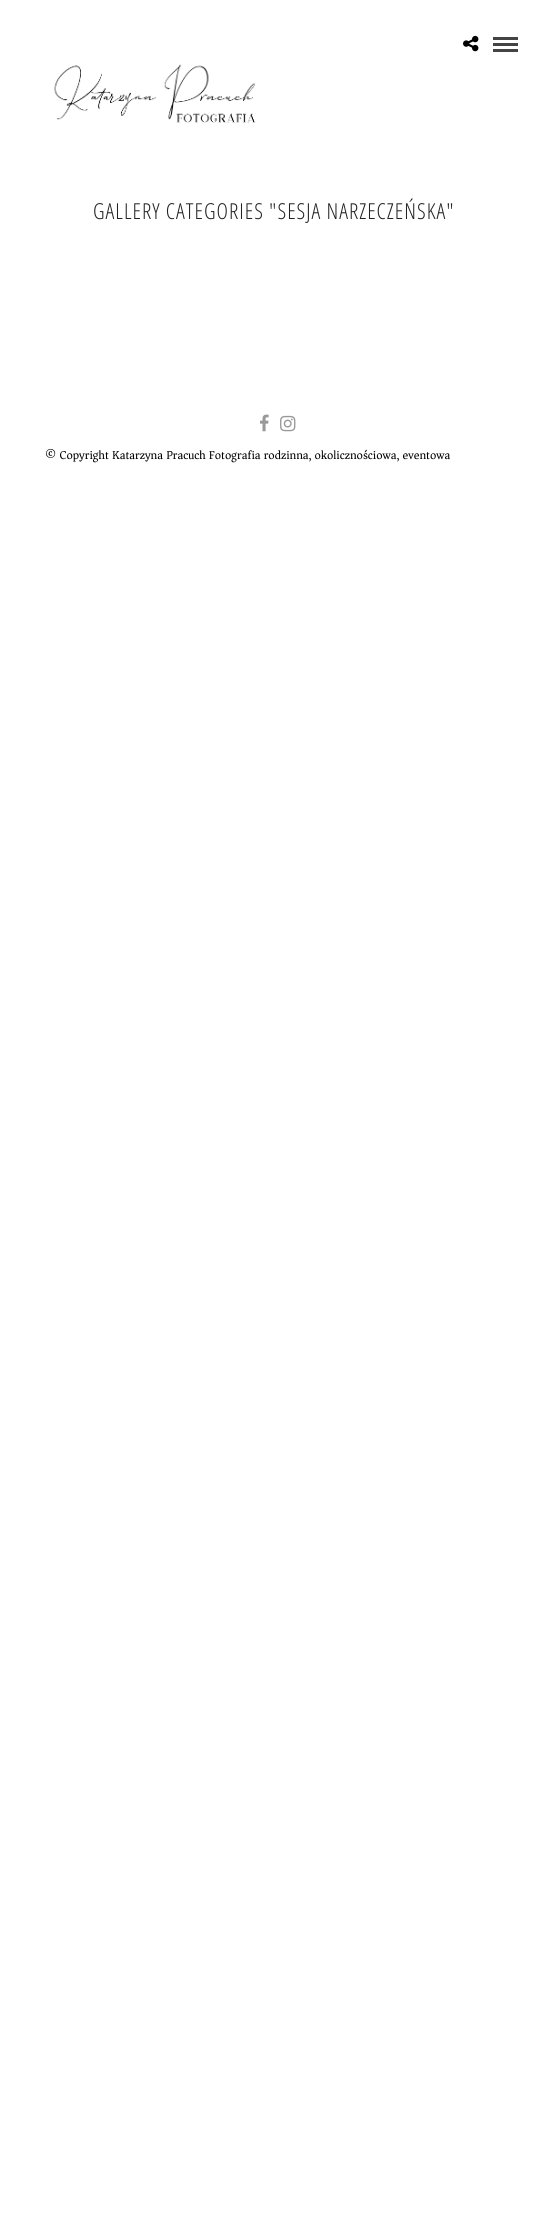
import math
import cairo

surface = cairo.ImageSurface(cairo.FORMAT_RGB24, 548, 2238)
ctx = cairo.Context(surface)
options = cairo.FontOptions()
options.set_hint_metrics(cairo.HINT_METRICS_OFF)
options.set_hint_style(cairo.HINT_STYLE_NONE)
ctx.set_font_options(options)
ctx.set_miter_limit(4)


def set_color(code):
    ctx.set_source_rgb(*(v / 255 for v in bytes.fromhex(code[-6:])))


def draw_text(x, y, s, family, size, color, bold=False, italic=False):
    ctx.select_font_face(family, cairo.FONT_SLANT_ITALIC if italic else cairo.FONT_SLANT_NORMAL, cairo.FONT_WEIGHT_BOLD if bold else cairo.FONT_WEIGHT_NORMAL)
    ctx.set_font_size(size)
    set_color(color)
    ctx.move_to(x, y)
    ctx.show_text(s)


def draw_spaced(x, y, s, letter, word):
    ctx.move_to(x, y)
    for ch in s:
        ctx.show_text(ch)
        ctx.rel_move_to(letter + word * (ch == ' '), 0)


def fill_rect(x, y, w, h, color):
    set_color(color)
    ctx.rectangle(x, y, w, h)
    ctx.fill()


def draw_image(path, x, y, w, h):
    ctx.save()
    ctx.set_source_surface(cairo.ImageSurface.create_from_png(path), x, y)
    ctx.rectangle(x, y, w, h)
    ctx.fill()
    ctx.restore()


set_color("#ffffff")
ctx.paint()
draw_image("assets/img1.png", 463, 35, 16, 17)
fill_rect(493, 37, 25, 3, "#444444")
fill_rect(493, 43, 25, 3, "#444444")
fill_rect(493, 49, 25, 3, "#444444")
draw_image("assets/img2.png", 54, 64, 202, 59)
ctx.select_font_face("Open Sans Condensed Light")
ctx.set_font_size(22)
set_color("#222222")
draw_spaced(93, 219, "GALLERY CATEGORIES \"SESJA NARZECZEŃSKA\"", 1, 0)
draw_image("assets/img3.png", 260, 414, 9, 18)
draw_image("assets/img4.png", 280, 415, 16, 17)
draw_text(45, 459, "© Copyright Katarzyna Pracuch Fotografia rodzinna, okolicznościowa, eventowa", "Asar", 12, "#000000")
surface.write_to_png("output.png")
